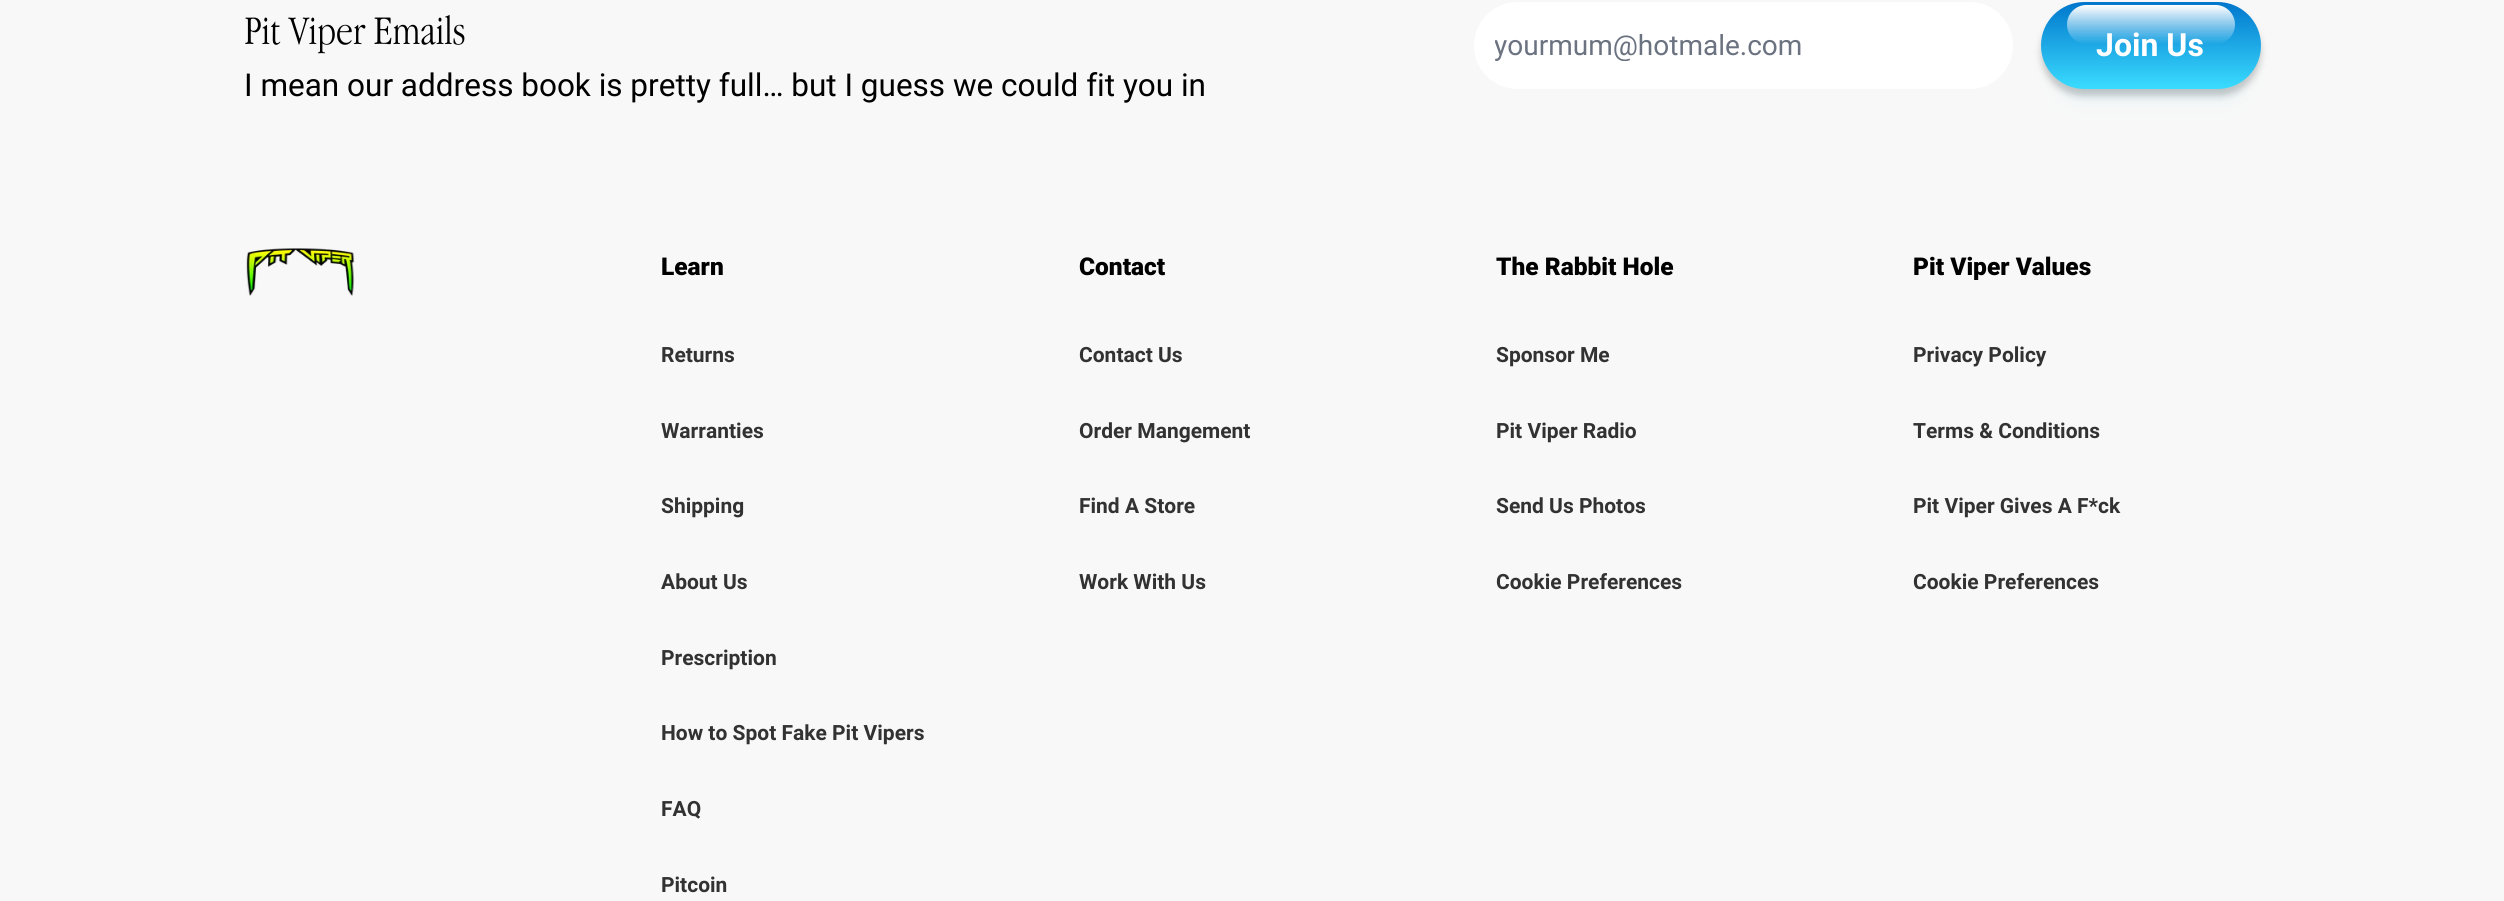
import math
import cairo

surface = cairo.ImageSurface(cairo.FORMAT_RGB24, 2504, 901)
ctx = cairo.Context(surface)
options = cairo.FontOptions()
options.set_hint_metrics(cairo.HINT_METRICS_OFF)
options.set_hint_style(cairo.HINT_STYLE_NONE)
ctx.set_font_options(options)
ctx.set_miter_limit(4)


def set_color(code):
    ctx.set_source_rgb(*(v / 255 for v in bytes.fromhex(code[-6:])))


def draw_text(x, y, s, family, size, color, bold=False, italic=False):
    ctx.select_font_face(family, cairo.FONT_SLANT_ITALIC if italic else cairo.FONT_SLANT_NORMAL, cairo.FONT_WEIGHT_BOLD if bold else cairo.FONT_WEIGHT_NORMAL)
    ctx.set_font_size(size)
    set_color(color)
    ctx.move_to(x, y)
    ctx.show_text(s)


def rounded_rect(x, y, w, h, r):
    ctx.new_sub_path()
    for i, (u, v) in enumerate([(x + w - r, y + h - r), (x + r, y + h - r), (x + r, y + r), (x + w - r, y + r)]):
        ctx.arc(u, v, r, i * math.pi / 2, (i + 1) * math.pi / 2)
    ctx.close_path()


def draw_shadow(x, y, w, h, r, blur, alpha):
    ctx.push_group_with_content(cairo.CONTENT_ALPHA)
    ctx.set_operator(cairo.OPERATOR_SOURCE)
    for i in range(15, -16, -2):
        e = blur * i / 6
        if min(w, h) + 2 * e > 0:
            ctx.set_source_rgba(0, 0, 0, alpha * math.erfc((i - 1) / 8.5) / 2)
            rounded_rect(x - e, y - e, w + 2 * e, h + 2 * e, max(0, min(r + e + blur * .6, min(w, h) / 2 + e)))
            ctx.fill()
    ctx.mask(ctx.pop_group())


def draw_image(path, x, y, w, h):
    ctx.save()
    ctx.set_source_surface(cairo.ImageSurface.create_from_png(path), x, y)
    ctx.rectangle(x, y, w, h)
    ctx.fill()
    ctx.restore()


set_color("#f8f8f8")
ctx.paint()
draw_text(244, 44, "Pit Viper Emails", "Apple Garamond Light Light", 42, "#000000")
draw_text(244, 96, "I mean our address book is pretty full… but I guess we could fit you in", "Roboto", 31.5, "#000000")
set_color("#ffffff")
rounded_rect(1474, 2, 539, 87, 43.5)
ctx.fill()
ctx.save()
ctx.rectangle(1495, 28, 497, 33)
ctx.clip()
draw_text(1494, 55, "yourmum@hotmale.com", "Roboto", 28, "#6b7280")
ctx.restore()
set_color("#00c4ff")
draw_shadow(2076, 65, 150, 17, 8.5, 17.5, 0.2)
set_color("#000000")
draw_shadow(2041, 9, 220, 87, 43.5, 3.5, 0.2)
gradient = cairo.LinearGradient(2151, 1.7, 2151, 89)
gradient.add_color_stop_rgba(0, 0, 0.463, 0.8, 1)
gradient.add_color_stop_rgba(1, 0.231, 0.863, 1, 1)
ctx.set_source(gradient)
rounded_rect(2041, 2, 220, 87, 43.5)
ctx.fill()
draw_text(2096, 56, "Join Us", "Roboto", 32, "#ffffff", bold=True)
gradient = cairo.LinearGradient(2151, 5.2, 2151, 44)
gradient.add_color_stop_rgba(0, 1, 1, 1, 1)
gradient.add_color_stop_rgba(1, 1, 1, 1, 0)
ctx.set_source(gradient)
rounded_rect(2067, 5, 168, 39, 19.5)
ctx.fill()
draw_image("assets/img1.png", 246, 248, 109, 48)
draw_text(661, 275, "Learn", "Roboto Black", 24.5, "#000000")
draw_text(661, 362, "Returns", "Roboto", 21, "#323232", bold=True)
draw_text(661, 438, "Warranties", "Roboto", 21, "#323232", bold=True)
draw_text(661, 513, "Shipping", "Roboto", 21, "#323232", bold=True)
draw_text(661, 589, "About Us", "Roboto", 21, "#323232", bold=True)
draw_text(661, 665, "Prescription", "Roboto", 21, "#323232", bold=True)
draw_text(661, 740, "How to Spot Fake Pit Vipers", "Roboto", 21, "#323232", bold=True)
draw_text(661, 816, "FAQ", "Roboto", 21, "#323232", bold=True)
draw_text(661, 892, "Pitcoin", "Roboto", 21, "#323232", bold=True)
draw_text(1079, 275, "Contact", "Roboto Black", 24.5, "#000000")
draw_text(1079, 362, "Contact Us", "Roboto", 21, "#323232", bold=True)
draw_text(1079, 438, "Order Mangement", "Roboto", 21, "#323232", bold=True)
draw_text(1079, 513, "Find A Store", "Roboto", 21, "#323232", bold=True)
draw_text(1079, 589, "Work With Us", "Roboto", 21, "#323232", bold=True)
draw_text(1496, 275, "The Rabbit Hole", "Roboto Black", 24.5, "#000000")
draw_text(1496, 362, "Sponsor Me", "Roboto", 21, "#323232", bold=True)
draw_text(1496, 438, "Pit Viper Radio", "Roboto", 21, "#323232", bold=True)
draw_text(1496, 513, "Send Us Photos", "Roboto", 21, "#323232", bold=True)
draw_text(1496, 589, "Cookie Preferences", "Roboto", 21, "#323232", bold=True)
draw_text(1913, 275, "Pit Viper Values", "Roboto Black", 24.5, "#000000")
draw_text(1913, 362, "Privacy Policy", "Roboto", 21, "#323232", bold=True)
draw_text(1913, 438, "Terms & Conditions", "Roboto", 21, "#323232", bold=True)
draw_text(1913, 513, "Pit Viper Gives A F*ck", "Roboto", 21, "#323232", bold=True)
draw_text(1913, 589, "Cookie Preferences", "Roboto", 21, "#323232", bold=True)
surface.write_to_png("output.png")
